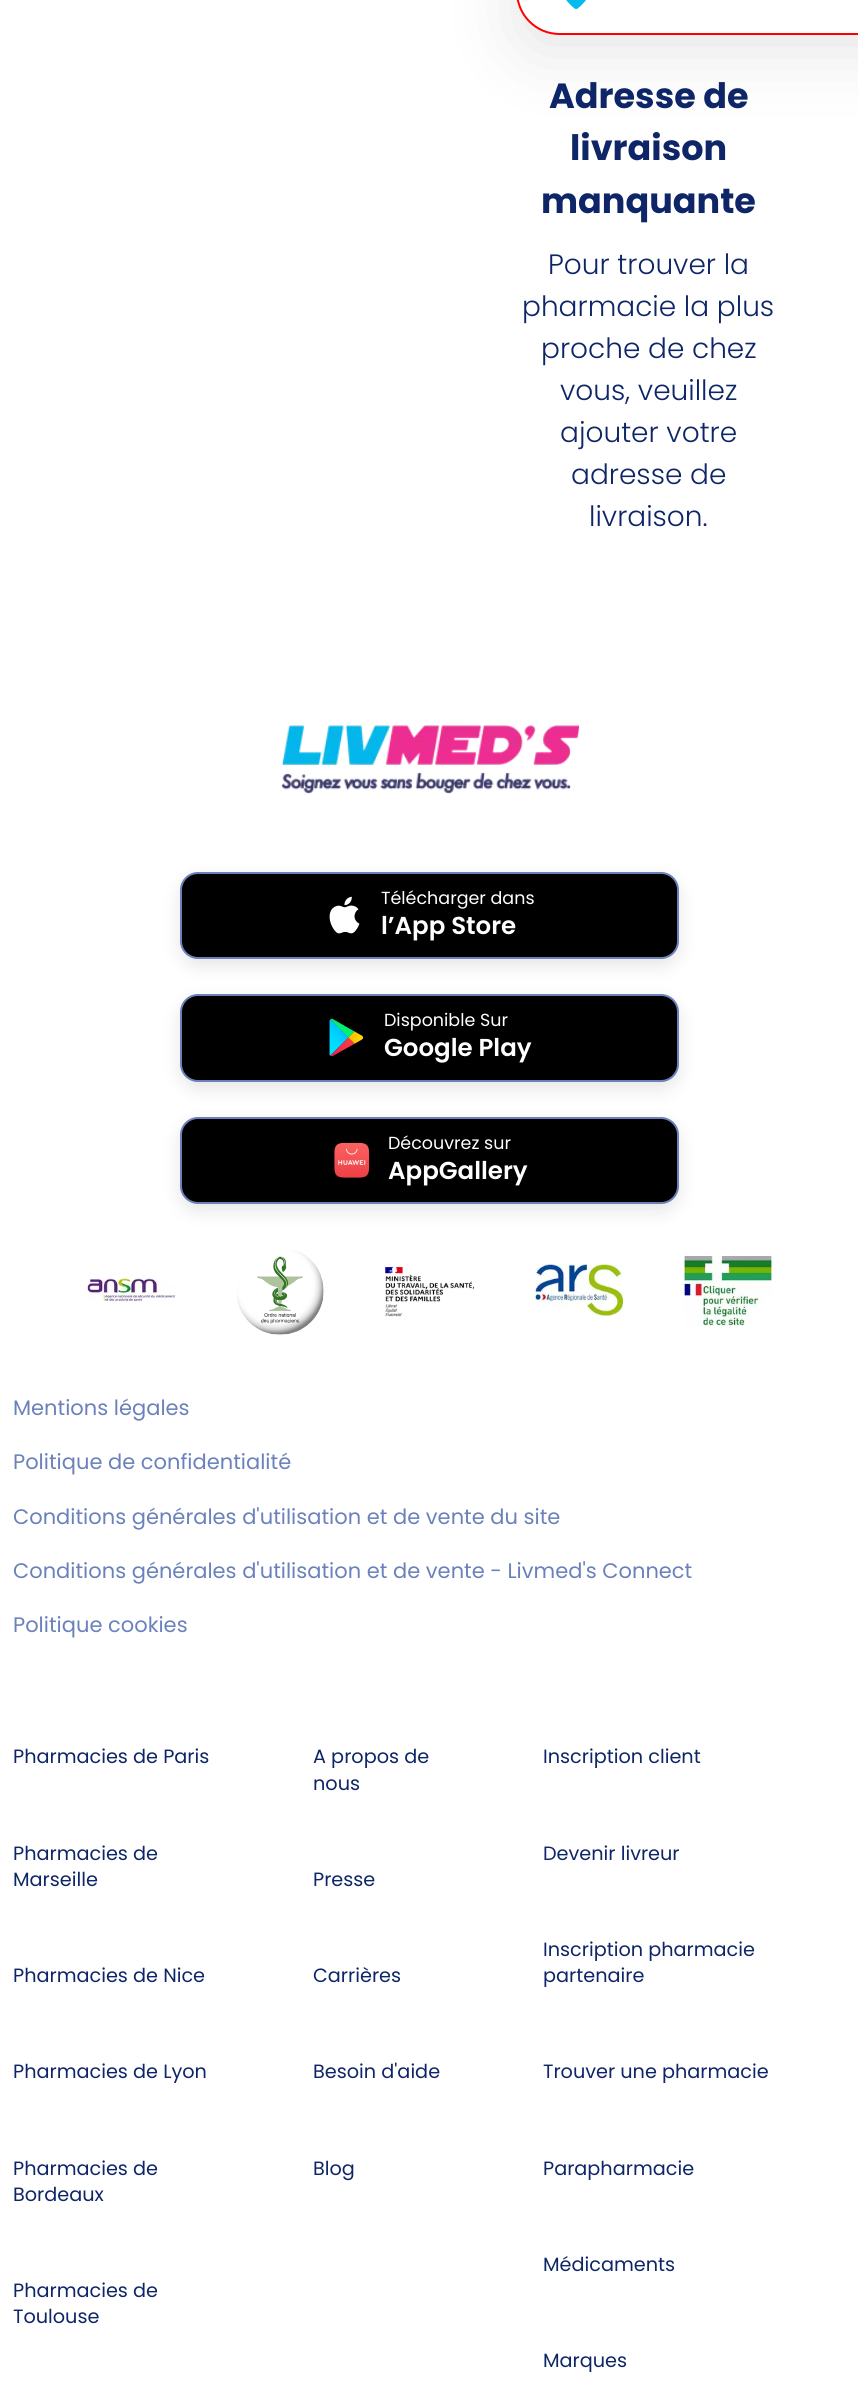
import math
import cairo

surface = cairo.ImageSurface(cairo.FORMAT_RGB24, 858, 2404)
ctx = cairo.Context(surface)
options = cairo.FontOptions()
options.set_hint_metrics(cairo.HINT_METRICS_OFF)
options.set_hint_style(cairo.HINT_STYLE_NONE)
ctx.set_font_options(options)
ctx.set_miter_limit(4)


def set_color(code):
    ctx.set_source_rgb(*(v / 255 for v in bytes.fromhex(code[-6:])))


def draw_text(x, y, s, family, size, color, bold=False, italic=False):
    ctx.select_font_face(family, cairo.FONT_SLANT_ITALIC if italic else cairo.FONT_SLANT_NORMAL, cairo.FONT_WEIGHT_BOLD if bold else cairo.FONT_WEIGHT_NORMAL)
    ctx.set_font_size(size)
    set_color(color)
    ctx.move_to(x, y)
    ctx.show_text(s)


def rounded_rect(x, y, w, h, r):
    ctx.new_sub_path()
    for i, (u, v) in enumerate([(x + w - r, y + h - r), (x + r, y + h - r), (x + r, y + r), (x + w - r, y + r)]):
        ctx.arc(u, v, r, i * math.pi / 2, (i + 1) * math.pi / 2)
    ctx.close_path()


def draw_shadow(x, y, w, h, r, blur, alpha):
    ctx.push_group_with_content(cairo.CONTENT_ALPHA)
    ctx.set_operator(cairo.OPERATOR_SOURCE)
    for i in range(15, -16, -2):
        e = blur * i / 6
        if min(w, h) + 2 * e > 0:
            ctx.set_source_rgba(0, 0, 0, alpha * math.erfc((i - 1) / 8.5) / 2)
            rounded_rect(x - e, y - e, w + 2 * e, h + 2 * e, max(0, min(r + e + blur * .6, min(w, h) / 2 + e)))
            ctx.fill()
    ctx.mask(ctx.pop_group())


def draw_image(path, x, y, w, h):
    ctx.save()
    ctx.set_source_surface(cairo.ImageSurface.create_from_png(path), x, y)
    ctx.rectangle(x, y, w, h)
    ctx.fill()
    ctx.restore()


set_color("#ffffff")
ctx.paint()
set_color("#000000")
draw_shadow(516, -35, 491, 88, 44, 35, 0.1)
set_color("#ffffff")
ctx.new_path()
ctx.move_to(559.5, -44)
ctx.line_to(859, -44)
ctx.line_to(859, 35)
ctx.line_to(559.5, 35)
ctx.curve_to(535.5, 35, 516, 15.5, 516, -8.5)
ctx.line_to(516, -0.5)
ctx.curve_to(516, -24.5, 535.5, -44, 559.5, -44)
ctx.close_path()
ctx.fill()
rounded_rect(517, -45, 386, 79, 42.5)
set_color("#ff0000")
ctx.stroke()
draw_image("assets/img1.png", 566, 0, 20, 9)
draw_text(549, 108, "Adresse de", "Poppins", 35, "#0e2667", bold=True)
draw_text(570, 160, "livraison", "Poppins", 35, "#0e2667", bold=True)
draw_text(541, 213, "manquante", "Poppins", 35, "#0e2667", bold=True)
draw_text(548, 274, "Pour trouver la", "Poppins Light", 28, "#0e2667")
draw_text(522, 316, "pharmacie la plus", "Poppins Light", 28, "#0e2667")
draw_text(541, 358, "proche de chez", "Poppins Light", 28, "#0e2667")
draw_text(560, 400, "vous, veuillez", "Poppins Light", 28, "#0e2667")
draw_text(560, 442, "ajouter votre", "Poppins Light", 28, "#0e2667")
draw_text(571, 484, "adresse de", "Poppins Light", 28, "#0e2667")
draw_text(589, 526, "livraison.", "Poppins Light", 28, "#0e2667")
draw_image("assets/img2.png", 281, 725, 299, 69)
set_color("#000000")
draw_shadow(180, 879, 499, 87, 18, 9, 0.1)
set_color("#000000")
rounded_rect(181, 873, 497, 85, 17)
ctx.fill_preserve()
set_color("#6a81bb")
ctx.stroke()
draw_image("assets/img3.png", 329, 896, 31, 38)
draw_text(381, 904, "Télécharger dans", "Poppins", 17.5, "#ffffff")
draw_text(381, 934, "l’App Store", "Poppins SemiBold", 24.5, "#ffffff")
set_color("#000000")
draw_shadow(180, 1001, 499, 88, 18, 9, 0.1)
set_color("#000000")
rounded_rect(181, 995, 497, 86, 17)
ctx.fill_preserve()
set_color("#6a81bb")
ctx.stroke()
draw_image("assets/img4.png", 329, 1018, 35, 39)
draw_text(384, 1026, "Disponible Sur", "Poppins", 17.5, "#ffffff")
draw_text(384, 1056, "Google Play", "Poppins SemiBold", 24.5, "#ffffff")
set_color("#000000")
draw_shadow(180, 1124, 499, 87, 18, 9, 0.1)
set_color("#000000")
rounded_rect(181, 1118, 497, 85, 17)
ctx.fill_preserve()
set_color("#6a81bb")
ctx.stroke()
draw_image("assets/img5.png", 334, 1142, 36, 36)
draw_text(388, 1149, "Découvrez sur", "Poppins", 17.5, "#ffffff")
draw_text(388, 1179, "AppGallery", "Poppins SemiBold", 24.5, "#ffffff")
draw_image("assets/img6.png", 87, 1278, 88, 24)
draw_image("assets/img7.png", 237, 1250, 87, 85)
draw_image("assets/img8.png", 385, 1266, 90, 51)
draw_image("assets/img9.png", 535, 1264, 88, 52)
draw_image("assets/img10.png", 684, 1256, 88, 70)
draw_text(13, 1415, "Mentions légales", "Poppins", 21, "#6a81bb")
draw_text(13, 1469, "Politique de confidentialité", "Poppins", 21, "#6a81bb")
draw_text(13, 1524, "Conditions générales d'utilisation et de vente du site", "Poppins", 21, "#6a81bb")
draw_text(13, 1578, "Conditions générales d'utilisation et de vente - Livmed's Connect", "Poppins", 21, "#6a81bb")
draw_text(13, 1632, "Politique cookies", "Poppins", 21, "#6a81bb")
draw_text(13, 1763, "Pharmacies de Paris", "Poppins", 19.25, "#0e2667")
draw_text(13, 1860, "Pharmacies de", "Poppins", 19.25, "#0e2667")
draw_text(13, 1886, "Marseille", "Poppins", 19.25, "#0e2667")
draw_text(13, 1982, "Pharmacies de Nice", "Poppins", 19.25, "#0e2667")
draw_text(13, 2078, "Pharmacies de Lyon", "Poppins", 19.25, "#0e2667")
draw_text(13, 2175, "Pharmacies de", "Poppins", 19.25, "#0e2667")
draw_text(13, 2201, "Bordeaux", "Poppins", 19.25, "#0e2667")
draw_text(13, 2297, "Pharmacies de", "Poppins", 19.25, "#0e2667")
draw_text(13, 2323, "Toulouse", "Poppins", 19.25, "#0e2667")
draw_text(313, 1763, "A propos de", "Poppins", 19.25, "#0e2667")
draw_text(313, 1790, "nous", "Poppins", 19.25, "#0e2667")
draw_text(313, 1886, "Presse", "Poppins", 19.25, "#0e2667")
draw_text(313, 1982, "Carrières", "Poppins", 19.25, "#0e2667")
draw_text(313, 2078, "Besoin d'aide", "Poppins", 19.25, "#0e2667")
draw_text(313, 2175, "Blog", "Poppins", 19.25, "#0e2667")
draw_text(543, 1763, "Inscription client", "Poppins", 19.25, "#0e2667")
draw_text(543, 1860, "Devenir livreur", "Poppins", 19.25, "#0e2667")
draw_text(543, 1956, "Inscription pharmacie", "Poppins", 19.25, "#0e2667")
draw_text(543, 1982, "partenaire", "Poppins", 19.25, "#0e2667")
draw_text(543, 2078, "Trouver une pharmacie", "Poppins", 19.25, "#0e2667")
draw_text(543, 2175, "Parapharmacie", "Poppins", 19.25, "#0e2667")
draw_text(543, 2271, "Médicaments", "Poppins", 19.25, "#0e2667")
draw_text(543, 2367, "Marques", "Poppins", 19.25, "#0e2667")
surface.write_to_png("output.png")
